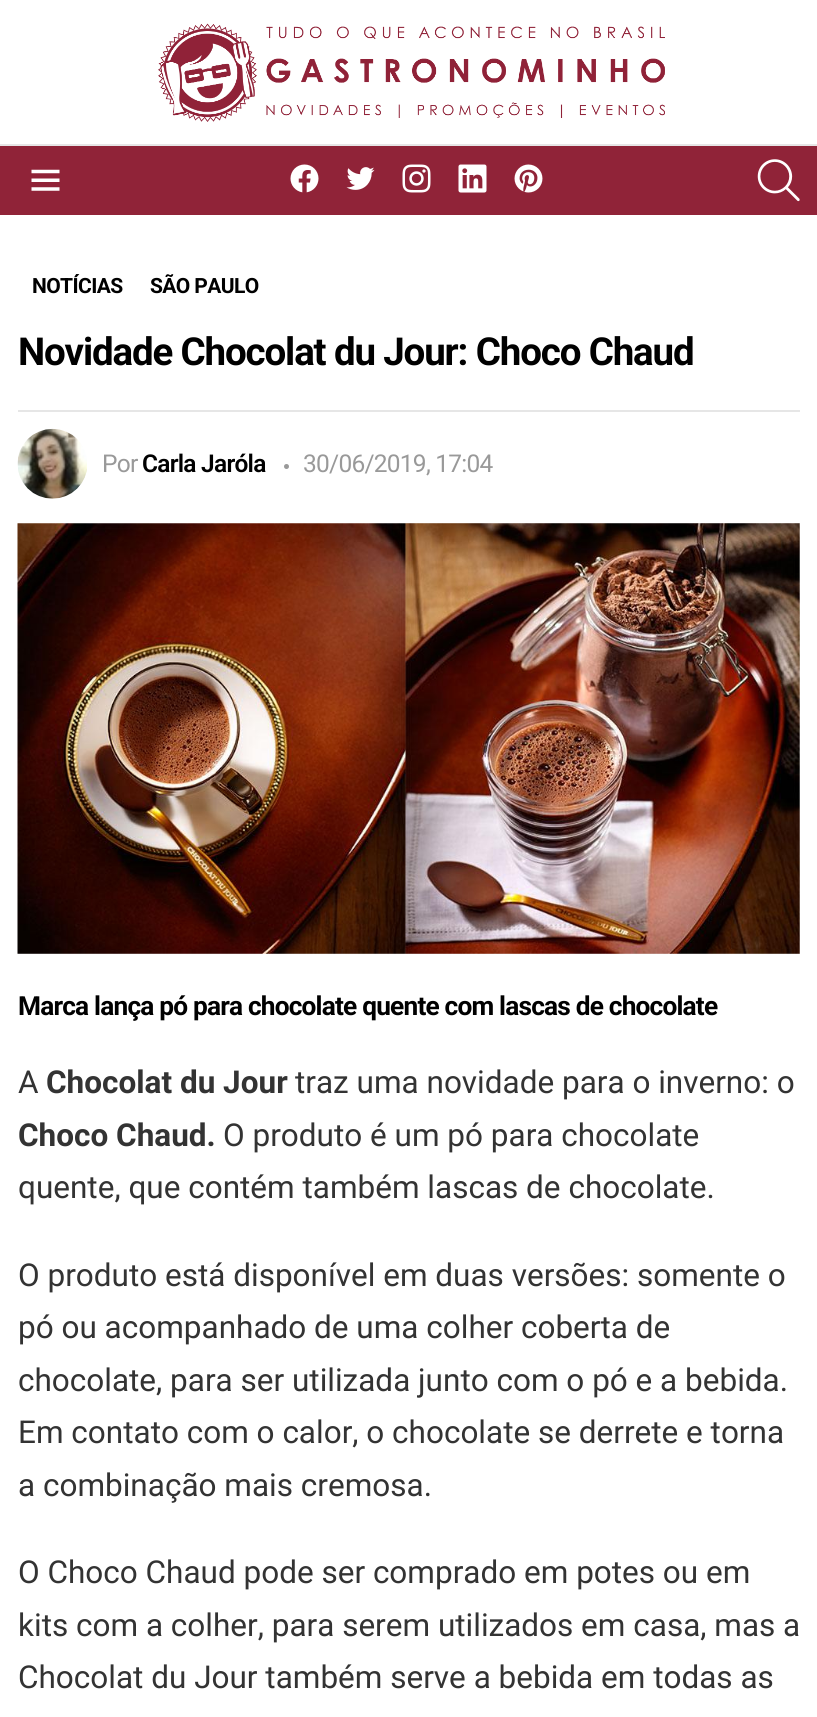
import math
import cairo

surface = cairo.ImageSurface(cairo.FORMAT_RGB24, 817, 1717)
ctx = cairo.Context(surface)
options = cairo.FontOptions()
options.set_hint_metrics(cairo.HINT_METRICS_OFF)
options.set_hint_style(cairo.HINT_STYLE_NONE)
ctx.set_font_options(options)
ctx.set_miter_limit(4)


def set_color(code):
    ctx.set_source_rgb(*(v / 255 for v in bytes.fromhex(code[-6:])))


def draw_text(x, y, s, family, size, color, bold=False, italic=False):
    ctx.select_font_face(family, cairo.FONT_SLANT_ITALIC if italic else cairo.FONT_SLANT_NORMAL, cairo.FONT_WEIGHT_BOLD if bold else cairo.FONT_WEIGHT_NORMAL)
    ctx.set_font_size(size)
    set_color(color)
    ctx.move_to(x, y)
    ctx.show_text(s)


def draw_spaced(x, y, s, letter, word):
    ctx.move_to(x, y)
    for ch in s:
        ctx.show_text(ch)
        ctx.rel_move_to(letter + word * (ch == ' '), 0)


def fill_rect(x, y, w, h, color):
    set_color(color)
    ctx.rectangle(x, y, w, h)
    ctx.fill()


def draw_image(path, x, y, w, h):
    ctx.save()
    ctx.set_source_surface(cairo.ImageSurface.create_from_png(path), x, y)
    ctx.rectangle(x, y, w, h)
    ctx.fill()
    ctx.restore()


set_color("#902338")
ctx.paint()
fill_rect(0, 0, 817, 144, "#ffffff")
fill_rect(0, 144, 817, 2, "#e6e6e6")
draw_image("assets/img1.png", 158, 23, 507, 99)
draw_image("assets/img2.png", 31, 169, 29, 22)
draw_image("assets/img3.png", 290, 164, 29, 29)
draw_image("assets/img4.png", 346, 167, 29, 23)
draw_image("assets/img5.png", 402, 164, 29, 29)
draw_image("assets/img6.png", 458, 164, 29, 29)
draw_image("assets/img7.png", 514, 164, 29, 29)
draw_image("assets/img8.png", 757, 159, 43, 43)
fill_rect(0, 215, 817, 1502, "#ffffff")
ctx.select_font_face("Roboto", cairo.FONT_SLANT_NORMAL, cairo.FONT_WEIGHT_BOLD)
ctx.set_font_size(21)
set_color("#000000")
draw_spaced(32, 293, "NOTÍCIAS", -0.6, 0)
draw_spaced(150, 293, "SÃO PAULO", -0.6, 0)
ctx.set_font_size(38.5)
draw_spaced(18, 365, "Novidade Chocolat du Jour: Choco Chaud", -1.15, 0)
fill_rect(18, 410, 782, 2, "#e6e6e6")
ctx.select_font_face("Roboto")
ctx.set_font_size(24.5)
set_color("#999999")
draw_spaced(102, 472, "Por", -0.75, 0)
draw_image("assets/img9.png", 17, 428, 70, 71)
ctx.select_font_face("Roboto SemiBold")
set_color("#000000")
draw_spaced(142, 472, "Carla Jaróla", -0.75, 0)
set_color("#999999")
ctx.new_path()
ctx.arc(286.5, 466.5, 2.5, 0, 2 * math.pi)
ctx.fill()
ctx.select_font_face("Roboto")
draw_spaced(303, 472, "30/06/2019, 17:04", -0.75, 0)
fill_rect(18, 523, 782, 431, "#e6e6e6")
draw_image("assets/img10.png", 17, 523, 783, 431)
ctx.select_font_face("Roboto", cairo.FONT_SLANT_NORMAL, cairo.FONT_WEIGHT_BOLD)
ctx.set_font_size(26.25)
set_color("#000000")
draw_spaced(18, 1015, "Marca lança pó para chocolate quente com lascas de chocolate", -0.8, 0)
draw_text(18, 1093, "A", "Roboto", 31.5, "#333333")
draw_text(46, 1093, "Chocolat du Jour", "Roboto", 31.5, "#333333", bold=True)
draw_text(295, 1093, "traz uma novidade para o inverno: o", "Roboto", 31.5, "#333333")
draw_text(18, 1146, "Choco Chaud.", "Roboto", 31.5, "#333333", bold=True)
draw_text(223, 1146, "O produto é um pó para chocolate", "Roboto", 31.5, "#333333")
draw_text(18, 1198, "quente, que contém também lascas de chocolate.", "Roboto", 31.5, "#333333")
draw_text(18, 1286, "O produto está disponível em duas versões: somente o", "Roboto", 31.5, "#333333")
draw_text(18, 1338, "pó ou acompanhado de uma colher coberta de", "Roboto", 31.5, "#333333")
draw_text(18, 1391, "chocolate, para ser utilizada junto com o pó e a bebida.", "Roboto", 31.5, "#333333")
draw_text(18, 1443, "Em contato com o calor, o chocolate se derrete e torna", "Roboto", 31.5, "#333333")
draw_text(18, 1496, "a combinação mais cremosa.", "Roboto", 31.5, "#333333")
draw_text(18, 1583, "O Choco Chaud pode ser comprado em potes ou em", "Roboto", 31.5, "#333333")
draw_text(18, 1636, "kits com a colher, para serem utilizados em casa, mas a", "Roboto", 31.5, "#333333")
draw_text(18, 1688, "Chocolat du Jour também serve a bebida em todas as", "Roboto", 31.5, "#333333")
surface.write_to_png("output.png")
